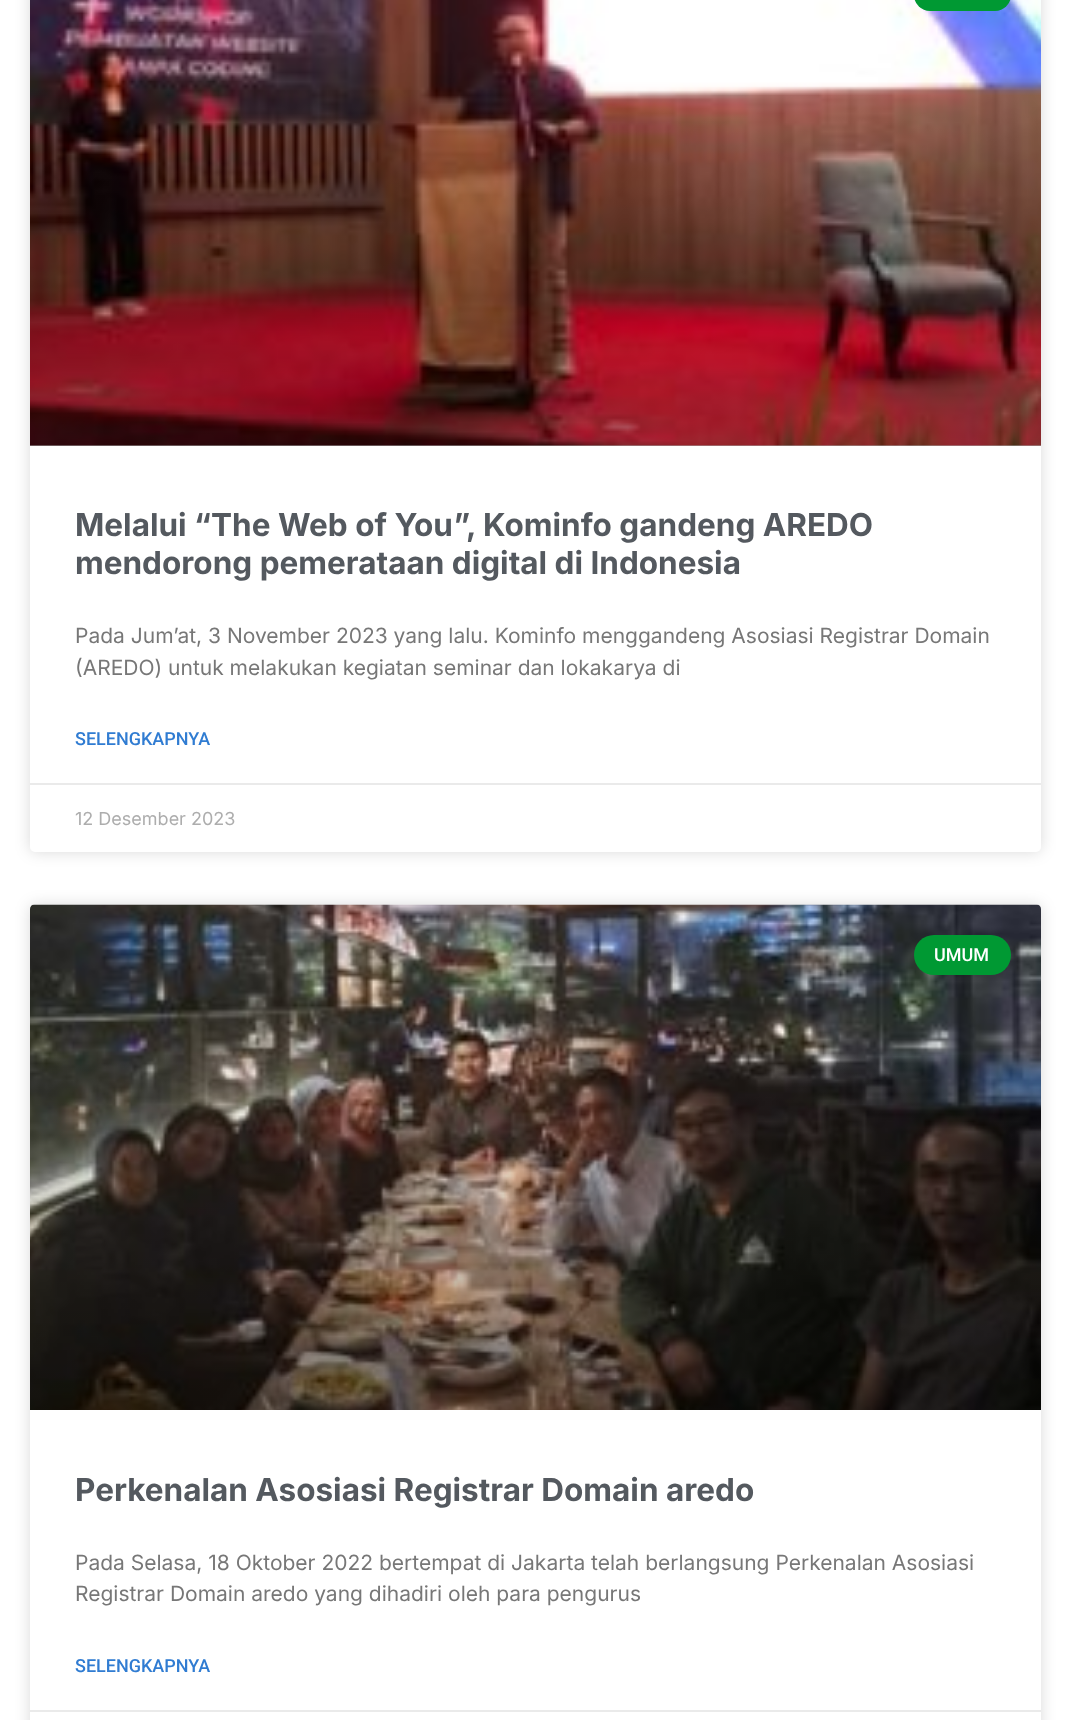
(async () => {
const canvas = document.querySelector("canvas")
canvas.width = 1071
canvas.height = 1720
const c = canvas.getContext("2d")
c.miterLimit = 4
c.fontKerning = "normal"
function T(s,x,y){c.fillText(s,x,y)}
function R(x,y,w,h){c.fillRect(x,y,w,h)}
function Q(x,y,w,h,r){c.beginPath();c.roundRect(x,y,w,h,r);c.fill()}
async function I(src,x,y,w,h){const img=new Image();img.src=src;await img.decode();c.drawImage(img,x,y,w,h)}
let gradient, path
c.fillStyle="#fff"
R(0,0,1071,1720)
c.fillStyle="#00000026"
c.filter="blur(7.5px)"
c.beginPath()
c.roundRect(30,-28,1011,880,5)
c.fill()
c.filter="none"
c.fillStyle="#fff"
Q(30,-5,1011,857,5)
await I("1.png",30,0,1011,446)
c.fillStyle="#093"
Q(914,-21,97,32,20.5)
gradient = c.createLinearGradient(536,446,536,-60)
gradient.addColorStop(0,"#00000059")
gradient.addColorStop(.75,"#00000000")
c.fillStyle = gradient
R(30,90,1011,356)
c.font="bold 31.5px Inter"
c.fillStyle="#54595f"
T("Melalui “The Web of You”, Kominfo gandeng AREDO",75,536)
T("mendorong pemerataan digital di Indonesia",75,574)
c.font="21px Inter"
c.fillStyle="#777"
T("Pada Jum’at, 3 November 2023 yang lalu. Kominfo menggandeng Asosiasi Registrar Domain",75,643)
T("(AREDO) untuk melakukan kegiatan seminar dan lokakarya di",75,675)
c.font="500 18px Roboto"
c.fillStyle="#307cd2"
T("SELENGKAPNYA",75,745)
c.fillStyle="#eaeaea"
R(30,783,1011,2)
c.font="18px Inter"
c.fillStyle="#adadad"
T("12 Desember 2023",75,825)
c.save()
path = new Path2D("M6 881h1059v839h-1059zm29 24h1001c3 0 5 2 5 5v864c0 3-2 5-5 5h-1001c-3 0-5-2-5-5v-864c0-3 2-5 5-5z")
c.clip(path,"evenodd")
c.fillStyle="#00000026"
c.filter="blur(7.5px)"
c.beginPath()
c.roundRect(30,905,1011,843,5)
c.fill()
c.filter="none"
c.restore()
await I("2.png",30,904,1011,506)
gradient = c.createLinearGradient(536,1410,536,905)
gradient.addColorStop(0,"#00000059")
gradient.addColorStop(.75,"#00000000")
c.fillStyle = gradient
R(30,1055,1011,355)
c.fillStyle="#093"
Q(914,935,97,40,20)
c.font="500 18px Roboto"
c.fillStyle="#fff"
T("UMUM",934,961)
c.font="bold 31.5px Inter"
c.fillStyle="#54595f"
T("Perkenalan Asosiasi Registrar Domain aredo",75,1501)
c.font="21px Inter"
c.fillStyle="#777"
T("Pada Selasa, 18 Oktober 2022 bertempat di Jakarta telah berlangsung Perkenalan Asosiasi",75,1570)
T("Registrar Domain aredo yang dihadiri oleh para pengurus",75,1601)
c.font="500 18px Roboto"
c.fillStyle="#307cd2"
T("SELENGKAPNYA",75,1672)
c.fillStyle="#eaeaea"
R(30,1710,1011,2)
})()
